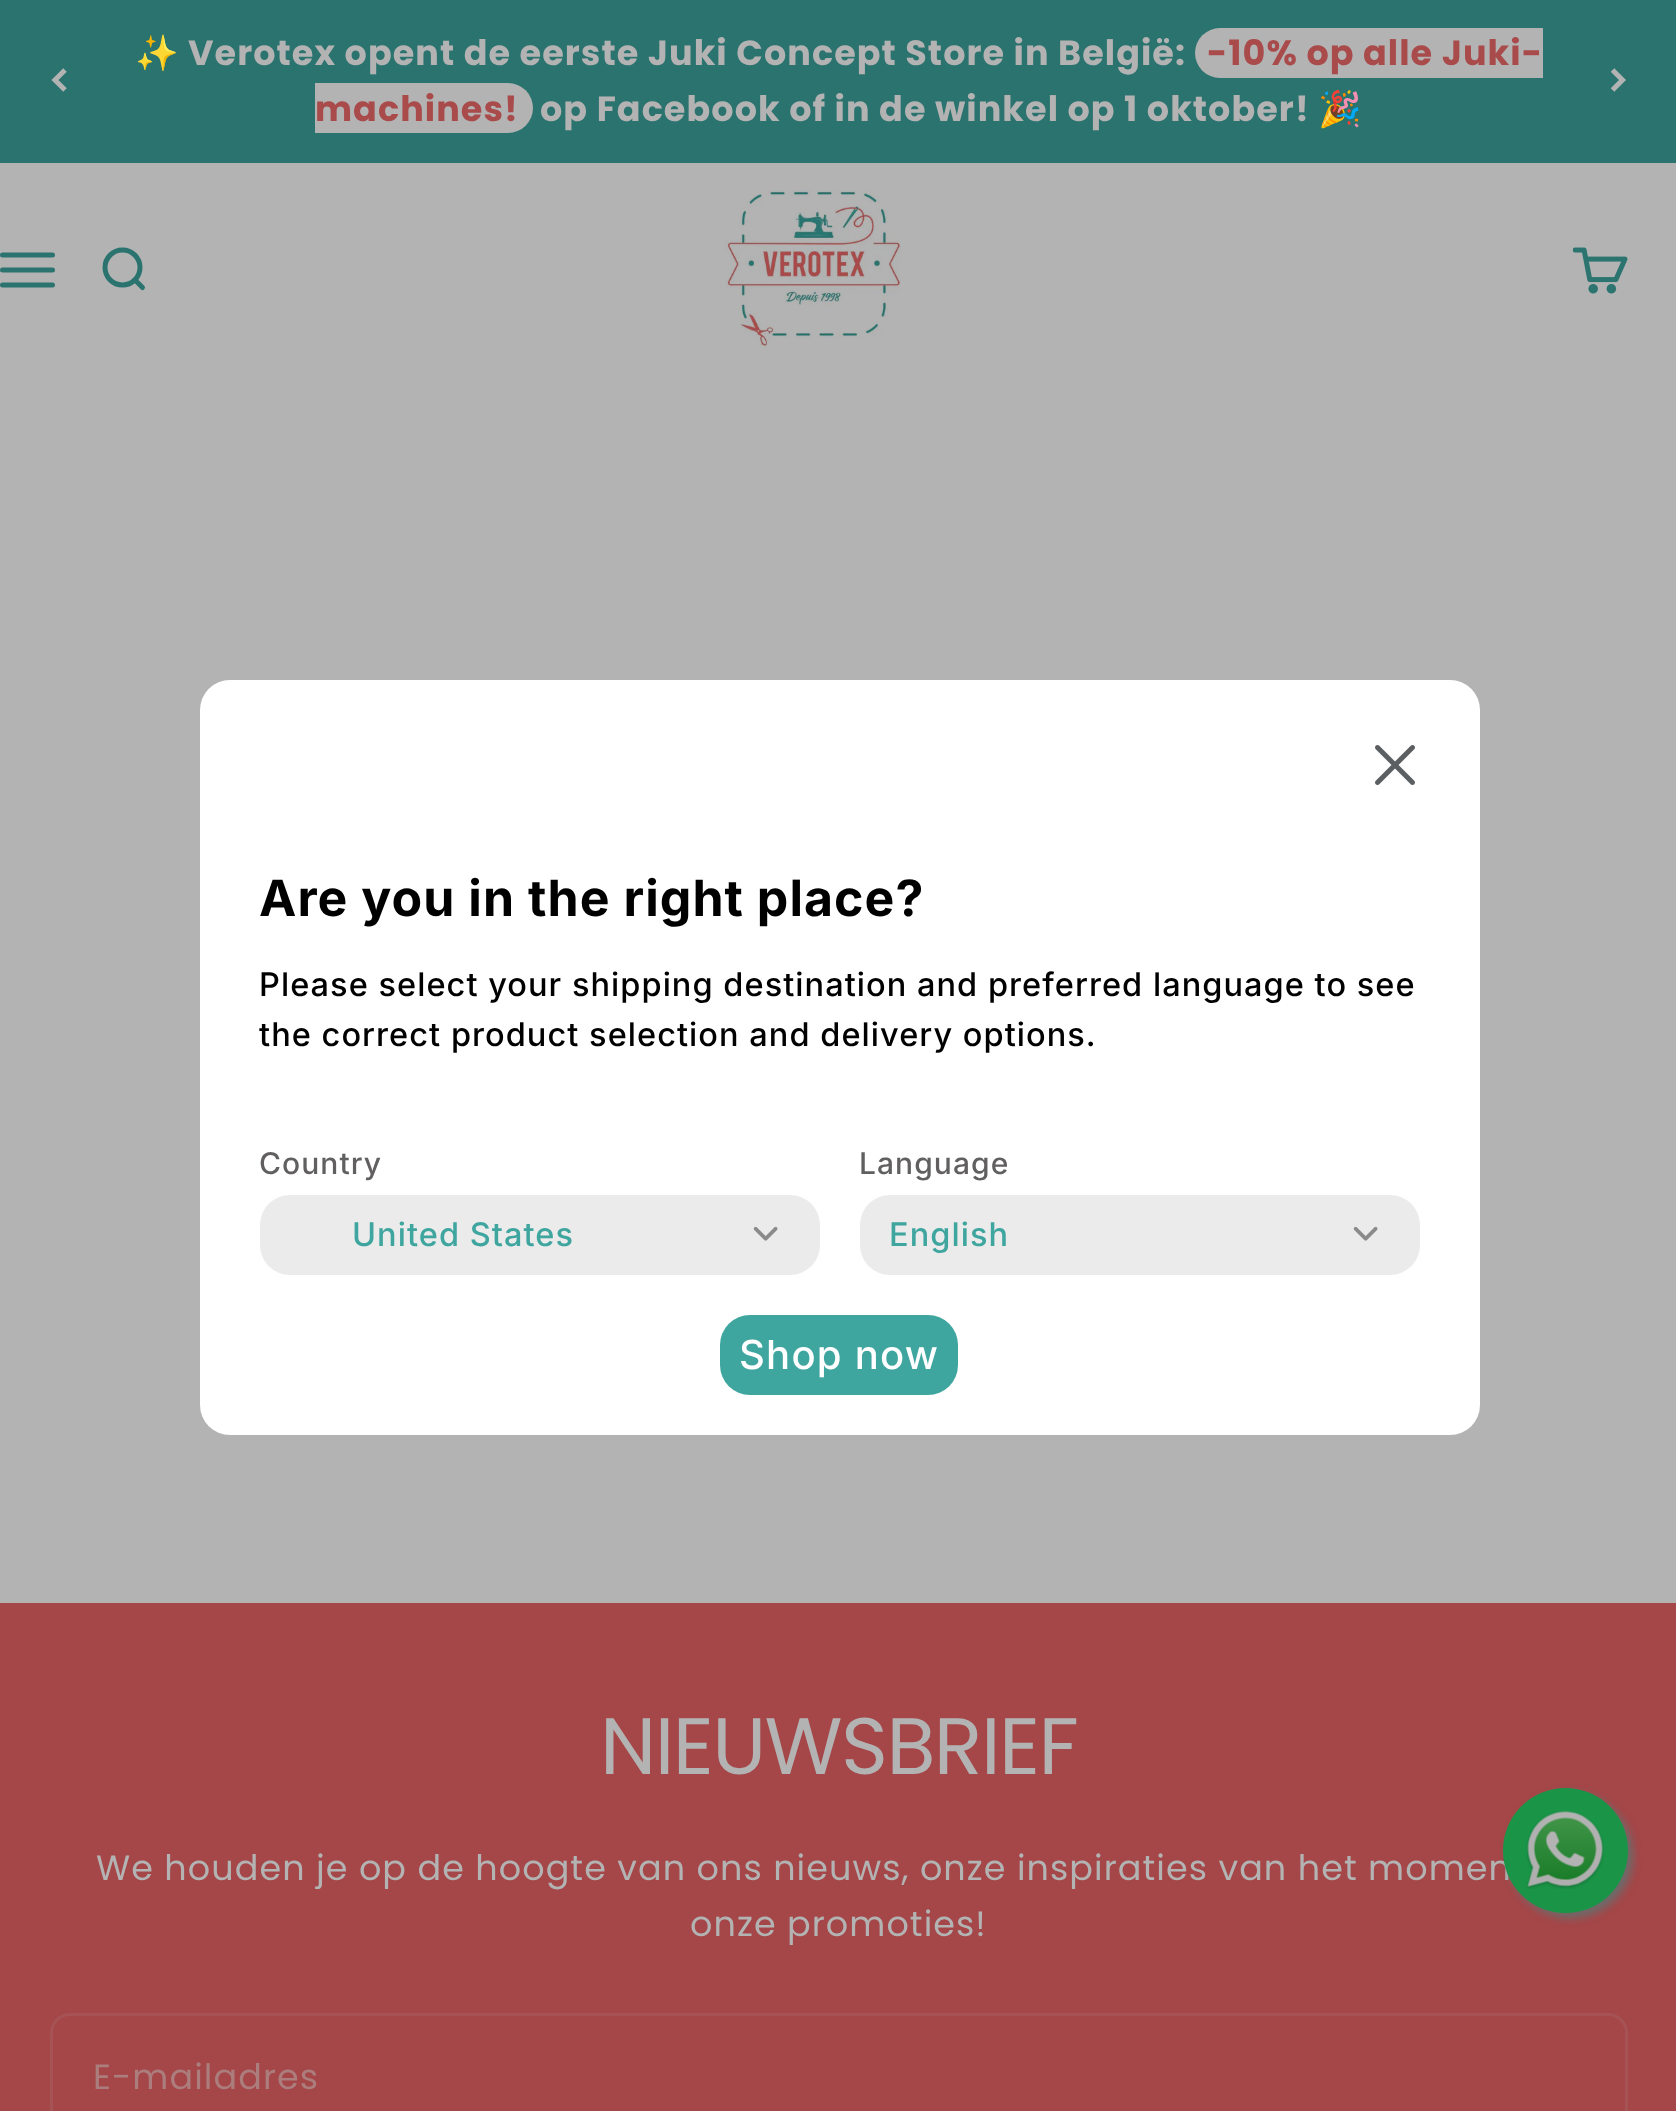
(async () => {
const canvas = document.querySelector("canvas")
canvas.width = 1676
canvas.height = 2111
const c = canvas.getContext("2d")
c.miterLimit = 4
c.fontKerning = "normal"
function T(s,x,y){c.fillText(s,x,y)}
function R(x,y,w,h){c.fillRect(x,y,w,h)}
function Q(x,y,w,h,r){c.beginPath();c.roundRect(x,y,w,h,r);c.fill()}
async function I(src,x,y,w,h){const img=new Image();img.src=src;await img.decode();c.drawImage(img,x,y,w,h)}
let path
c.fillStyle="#b3b3b3"
R(0,0,1676,2111)
c.fillStyle="#2b736f"
R(0,0,1676,163)
path = new Path2D("M65 70l-10 10l10 10")
c.strokeStyle="#b3b3b3"
c.lineWidth=5
c.stroke(path)
c.letterSpacing="1.05px"
c.font="bold 35px Noto Color Emoji"
c.fillStyle="#b3b3b3"
T("✨",135,65)
c.font="bold 35px Poppins"
T("Verotex opent de eerste Juki Concept Store in België:",188,65)
c.beginPath()
c.roundRect(1195,28,348,50,[25,0,0,25])
c.fill()
c.fillStyle="#a94a4b"
T("-10% op alle Juki-",1207,65)
c.fillStyle="#b3b3b3"
c.beginPath()
c.roundRect(315,83,218,50,[0,25,25,0])
c.fill()
c.fillStyle="#a94a4b"
T("machines!",315,121)
c.fillStyle="#b3b3b3"
T("op Facebook of in de winkel op 1 oktober!",540,121)
c.font="bold 35px Noto Color Emoji"
T("🎉",1318,121)
path = new Path2D("M1612.5 90l10-10l-10-10")
c.stroke(path)
path = new Path2D("M2.5 255h50m-50 15h50m-50 15h50")
c.strokeStyle="#2b736f"
c.lineCap="round"
c.stroke(path)
c.beginPath()
c.arc(122.5,267.5,17.5,0,7)
c.stroke()
path = new Path2D("M135 280l7.5 7.5")
c.lineJoin="round"
c.stroke(path)
await I("1.png",724,190,177,158)
await I("2.png",1573,247,55,47)
c.fillStyle="#fff"
Q(200,680,1280,755,30)
await I("3.png",1375,745,40,40)
c.font="bold 50px Inter"
c.fillStyle="#000"
T("Are you in the right place?",259,916)
c.font="500 32.5px Inter"
T("Please select your shipping destination and preferred language to see",259,996)
T("the correct product selection and delivery options.",259,1046)
c.font="500 30px Inter"
c.fillStyle="#615f5f"
T("Country",259,1174)
c.fillStyle="#ebebeb"
Q(260,1195,560,80,30)
c.font="500 32.5px Inter"
c.fillStyle="#3ea59f"
T("United States",352,1246)
await I("4.png",753,1226,25,15)
c.font="500 30px Inter"
c.fillStyle="#615f5f"
T("Language",859,1174)
c.fillStyle="#ebebeb"
Q(860,1195,560,80,30)
c.font="500 32.5px Inter"
c.fillStyle="#3ea59f"
T("English",889,1246)
await I("4.png",1353,1226,25,15)
Q(720,1315,238,80,30)
c.letterSpacing="1.25px"
c.font="500 40px Inter"
c.fillStyle="#fff"
T("Shop now",739,1369)
c.fillStyle="#a54648"
R(0,1603,1676,508)
c.letterSpacing="-1.6px"
c.font="80px Poppins"
c.fillStyle="#b3b3b3"
T("NIEUWSBRIEF",600,1774)
c.letterSpacing="1.05px"
c.font="35px Poppins"
T("We houden je op de hoogte van ons nieuws, onze inspiraties van het momen",96,1880)
T("onze promoties!",690,1936)
c.beginPath()
c.roundRect(51.5,2014.5,1575,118,18.5)
c.strokeStyle="#a65355"
c.lineWidth=3
c.lineJoin="miter"
c.stroke()
c.fillStyle="#ac7d7d"
T("E-mailadres",93,2089)
c.fillStyle="#6b6b6b"
c.filter="blur(4px)"
c.beginPath()
c.roundRect(1508,1793,125,125,62.5)
c.fill()
c.filter="none"
c.fillStyle="#1a9447"
c.beginPath()
c.arc(1565.5,1850.5,62.5,0,7)
c.fill()
await I("5.png",1526,1811,78,78)
})()
